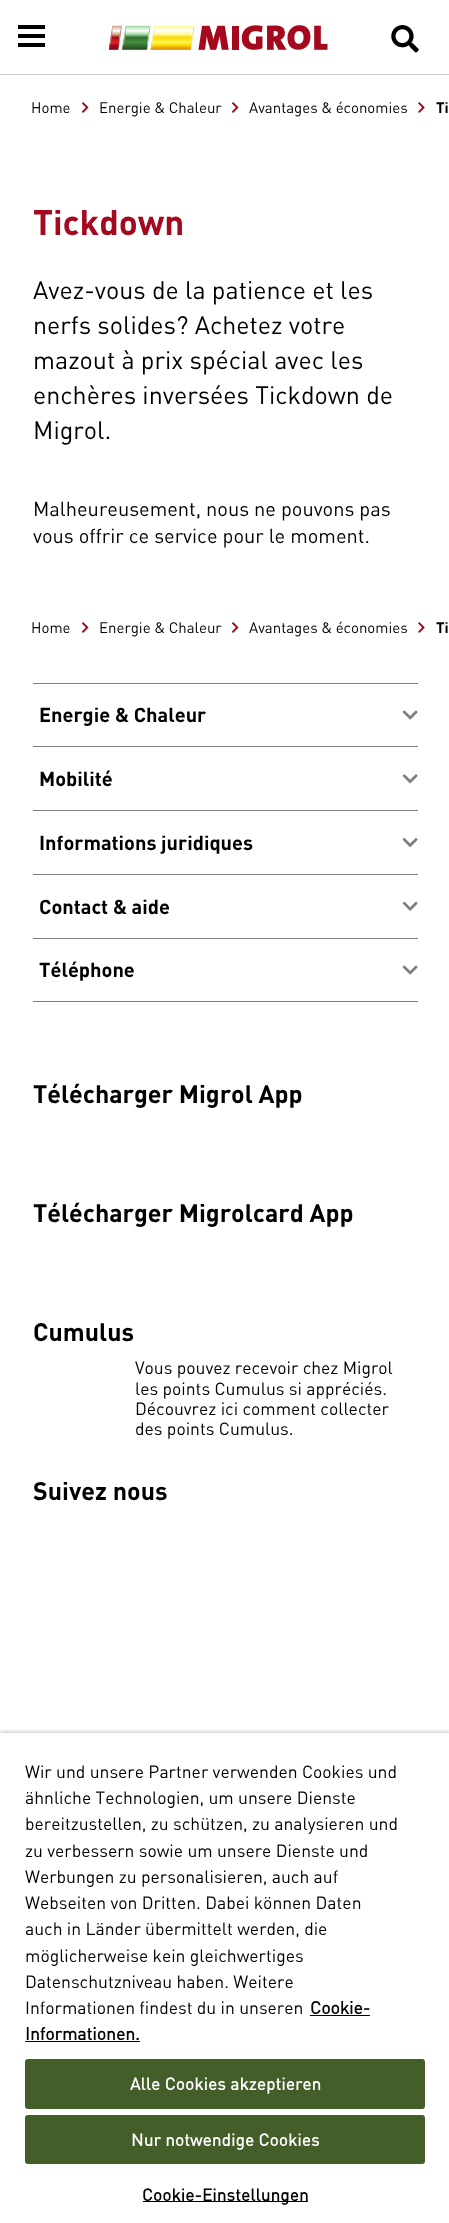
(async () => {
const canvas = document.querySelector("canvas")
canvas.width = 449
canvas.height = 2223
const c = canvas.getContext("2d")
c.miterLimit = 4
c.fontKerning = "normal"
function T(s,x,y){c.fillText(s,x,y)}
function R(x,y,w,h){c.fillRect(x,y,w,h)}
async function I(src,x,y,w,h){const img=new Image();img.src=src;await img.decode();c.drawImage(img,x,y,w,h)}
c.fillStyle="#fff"
R(0,0,449,2223)
c.fillStyle="#cdcdcd"
R(0,74,449,1)
c.fillStyle="#000"
R(18,34,27,4)
R(18,25,27,4)
R(18,43,27,4)
await I("1.png",109,25,219,25)
await I("2.png",391,25,28,28)
c.font="15px DIN"
T("Home",31,113)
await I("3.png",82,102,7,11)
T("Energie & Chaleur",99,113)
await I("3.png",232,102,7,11)
T("Avantages & économies",249,113)
await I("4.png",418,102,7,11)
c.font="bold 15px DIN"
T("Ti",436,113)
c.font="bold 35px DIN"
c.fillStyle="#a4091e"
T("Tickdown",33,235)
c.font="25px DIN"
c.fillStyle="#000"
T("Avez-vous de la patience et les",33,299)
T("nerfs solides? Achetez votre",33,334)
T("mazout à prix spécial avec les",33,369)
T("enchères inversées Tickdown de",33,404)
T("Migrol.",33,439)
c.font="20px DIN"
T("Malheureusement, nous ne pouvons pas",33,516)
T("vous offrir ce service pour le moment.",33,543)
c.font="15px DIN"
T("Home",31,633)
await I("3.png",82,622,7,11)
T("Energie & Chaleur",99,633)
await I("3.png",232,622,7,11)
T("Avantages & économies",249,633)
await I("4.png",418,622,7,11)
c.font="bold 15px DIN"
T("Ti",436,633)
c.fillStyle="#7f7f7f"
R(33,683,385,1)
c.font="bold 20px DIN"
c.fillStyle="#000"
T("Energie & Chaleur",39,722)
await I("5.png",402,710,16,10)
c.fillStyle="#7f7f7f"
R(33,746,385,1)
c.fillStyle="#000"
T("Mobilité",39,786)
await I("6.png",402,774,16,10)
c.fillStyle="#7f7f7f"
R(33,810,385,1)
c.fillStyle="#000"
T("Informations juridiques",39,850)
await I("7.png",402,838,16,9)
c.fillStyle="#7f7f7f"
R(33,874,385,1)
c.fillStyle="#000"
T("Contact & aide",39,914)
await I("8.png",402,901,16,10)
c.fillStyle="#7f7f7f"
R(33,938,385,1)
c.fillStyle="#000"
T("Téléphone",39,977)
await I("5.png",402,965,16,10)
c.fillStyle="#7f7f7f"
R(33,1001,385,1)
c.font="bold 25px DIN"
c.fillStyle="#000"
T("Télécharger Migrol App",33,1103)
T("Télécharger Migrolcard App",33,1222)
T("Cumulus",33,1341)
c.font="17.5px DIN"
T("Vous pouvez recevoir chez Migrol",135,1374)
T("les points Cumulus si appréciés.",135,1395)
T("Découvrez ici comment collecter",135,1415)
T("des points Cumulus.",135,1435)
c.font="bold 25px DIN"
T("Suivez nous",33,1500)
c.save()
c.beginPath()
c.rect(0,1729,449,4)
c.clip()
c.fillStyle="#00000059"
c.filter="blur(2.5px)"
c.beginPath()
c.rect(0,1733,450,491)
c.fill()
c.filter="none"
c.restore()
c.font="17.5px DIN"
T("Wir und unsere Partner verwenden Cookies und",25,1778)
T("ähnliche Technologien, um unsere Dienste",25,1804)
T("bereitzustellen, zu schützen, zu analysieren und",25,1830)
T("zu verbessern sowie um unsere Dienste und",25,1857)
T("Werbungen zu personalisieren, auch auf",25,1883)
T("Webseiten von Dritten. Dabei können Daten",25,1909)
T("auch in Länder übermittelt werden, die",25,1935)
T("möglicherweise kein gleichwertiges",25,1962)
T("Datenschutzniveau haben. Weitere",25,1988)
T("Informationen findest du in unseren",25,2014)
c.font="bold 17.5px 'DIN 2'"
T("Cookie-",310,2014)
R(310,2015,60,1)
T("Informationen.",25,2040)
R(25,2041,115,1)
c.fillStyle="#445e2a"
c.beginPath()
c.roundRect(25.5,2059.5,399,49,2)
c.fill()
c.strokeStyle="#445e2a"
c.stroke()
c.letterSpacing="0.2px"
c.font="bold 17px 'DIN 2'"
c.fillStyle="#fff"
T("Alle Cookies akzeptieren",130,2090)
c.fillStyle="#445e2a"
c.beginPath()
c.roundRect(25.5,2115.5,399,48,2)
c.fill()
c.stroke()
c.fillStyle="#fff"
T("Nur notwendige Cookies",131,2146)
c.fillStyle="#000"
R(143,2201,165,1)
T("Cookie-Einstellungen",142,2201)
})()
